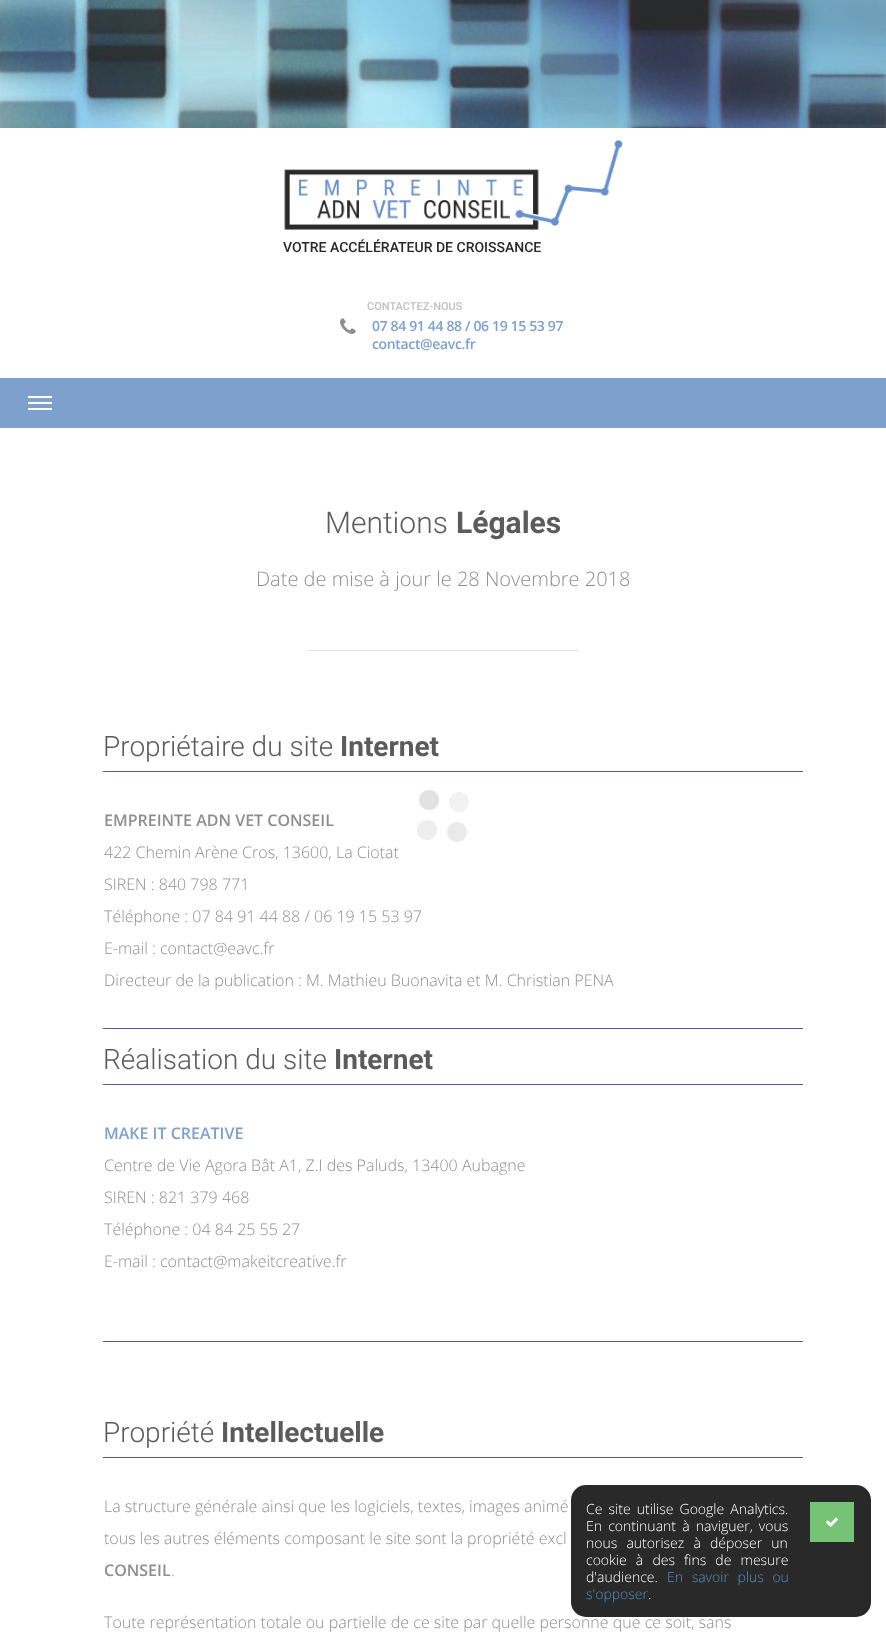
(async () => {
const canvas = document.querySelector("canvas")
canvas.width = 886
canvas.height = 1632
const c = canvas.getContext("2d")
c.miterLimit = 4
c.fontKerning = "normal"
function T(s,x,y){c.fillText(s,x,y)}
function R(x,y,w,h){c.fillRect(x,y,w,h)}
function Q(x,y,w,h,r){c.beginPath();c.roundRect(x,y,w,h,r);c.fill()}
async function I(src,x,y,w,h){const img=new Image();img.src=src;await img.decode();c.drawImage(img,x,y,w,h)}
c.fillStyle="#fff"
R(0,0,886,1632)
await I("1.png",0,0,886,128)
await I("2.png",284,140,339,90)
c.font="500 14px Roboto"
c.fillStyle="#292929"
T("VOTRE ACCÉLÉRATEUR DE CROISSANCE",283,252)
await I("3.png",340,318,16,16)
c.font="500 11px Roboto"
c.fillStyle="#c0c0c0"
T("CONTACTEZ-NOUS",367,310)
c.letterSpacing="-0.35px"
c.font="600 14px Open Sans"
c.fillStyle="#7ea0cc"
T("07 84 91 44 88 / 06 19 15 53 97",372,331)
T("contact@eavc.fr",372,349)
R(0,378,886,50)
c.fillStyle="#fff"
R(28,402,24,2)
R(28,396,24,2)
R(28,408,24,2)
c.letterSpacing="0px"
c.font="300 30px Roboto"
c.fillStyle="#5b5b5b"
T("Mentions",325,533)
c.font="bold 30px Roboto"
T("Légales",456,533)
c.font="300 20px Open Sans"
c.fillStyle="#8e8e8e"
T("Date de mise à jour le 28 Novembre 2018",256,586)
c.fillStyle="#e2e2e2"
R(308,650,270,1)
c.font="300 28px Roboto"
c.fillStyle="#5b5b5b"
T("Propriétaire du site",103,756)
c.font="bold 28px Roboto"
T("Internet",340,756)
c.save()
c.beginPath()
c.rect(103,716,700,313)
c.clip()
c.strokeStyle="#565a85"
c.strokeRect(88.5,771.5,729,257)
c.restore()
c.font="600 16px Open Sans"
c.fillStyle="#8e8e8e"
T("EMPREINTE ADN VET CONSEIL",104,826)
c.font="300 16px Open Sans"
T("422 Chemin Arène Cros, 13600, La Ciotat",104,858)
T("SIREN : 840 798 771",104,890)
T("Téléphone : 07 84 91 44 88 / 06 19 15 53 97",104,922)
T("E-mail : contact@eavc.fr",104,954)
T("Directeur de la publication : M. Mathieu Buonavita et M. Christian PENA",104,986)
c.font="300 28px Roboto"
c.fillStyle="#5b5b5b"
T("Réalisation du site",103,1069)
c.font="bold 28px Roboto"
T("Internet",334,1069)
c.save()
c.beginPath()
c.rect(103,1029,700,313)
c.clip()
c.strokeStyle="#565a85"
c.strokeRect(88.5,1084.5,729,257)
c.restore()
c.font="600 16px Open Sans"
c.fillStyle="#7ea0cc"
T("MAKE IT CREATIVE",104,1139)
c.font="300 16px Open Sans"
c.fillStyle="#8e8e8e"
T("Centre de Vie Agora Bât A1, Z.I des Paluds, 13400 Aubagne",104,1171)
T("SIREN : 821 379 468",104,1203)
T("Téléphone : 04 84 25 55 27",104,1235)
T("E-mail : contact@makeitcreative.fr",104,1267)
c.font="300 28px Roboto"
c.fillStyle="#5b5b5b"
T("Propriété",103,1442)
c.font="bold 28px Roboto"
T("Intellectuelle",221,1442)
c.save()
c.beginPath()
c.rect(103,1402,700,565)
c.clip()
c.strokeStyle="#565a85"
c.strokeRect(88.5,1457.5,729,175)
c.restore()
c.font="300 16px Open Sans"
c.fillStyle="#8e8e8e"
T("La structure générale ainsi que les logiciels, textes, images animé",104,1512)
T("tous les autres éléments composant le site sont la propriété excl",104,1544)
c.font="600 16px Open Sans"
T("CONSEIL",104,1576)
c.font="300 16px Open Sans"
T(".",171,1576)
T("Toute représentation totale ou partielle de ce site par quelle personne que ce soit, sans",104,1628)
await I("4.png",417,790,52,52)
c.fillStyle="#292929"
Q(571,1485,300,132,15)
c.wordSpacing="2.5px"
c.font="300 14px Open Sans"
c.fillStyle="#fff"
T("Ce site utilise Google Analytics.",586,1514)
c.fillStyle="#76c376"
R(810,1502,44,40)
await I("5.png",826,1517,12,10)
c.fillStyle="#fff"
T("En continuant à naviguer, vous",586,1531)
c.wordSpacing="5.5px"
T("nous autorisez à déposer un",586,1548)
T("cookie à des fins de mesure",586,1565)
c.wordSpacing="0px"
T("d'audience.",586,1582)
c.wordSpacing="5px"
c.fillStyle="#548fc3"
T("En savoir plus ou",667,1582)
c.wordSpacing="0px"
T("s'opposer",586,1599)
c.fillStyle="#fff"
T(".",648,1599)
})()
